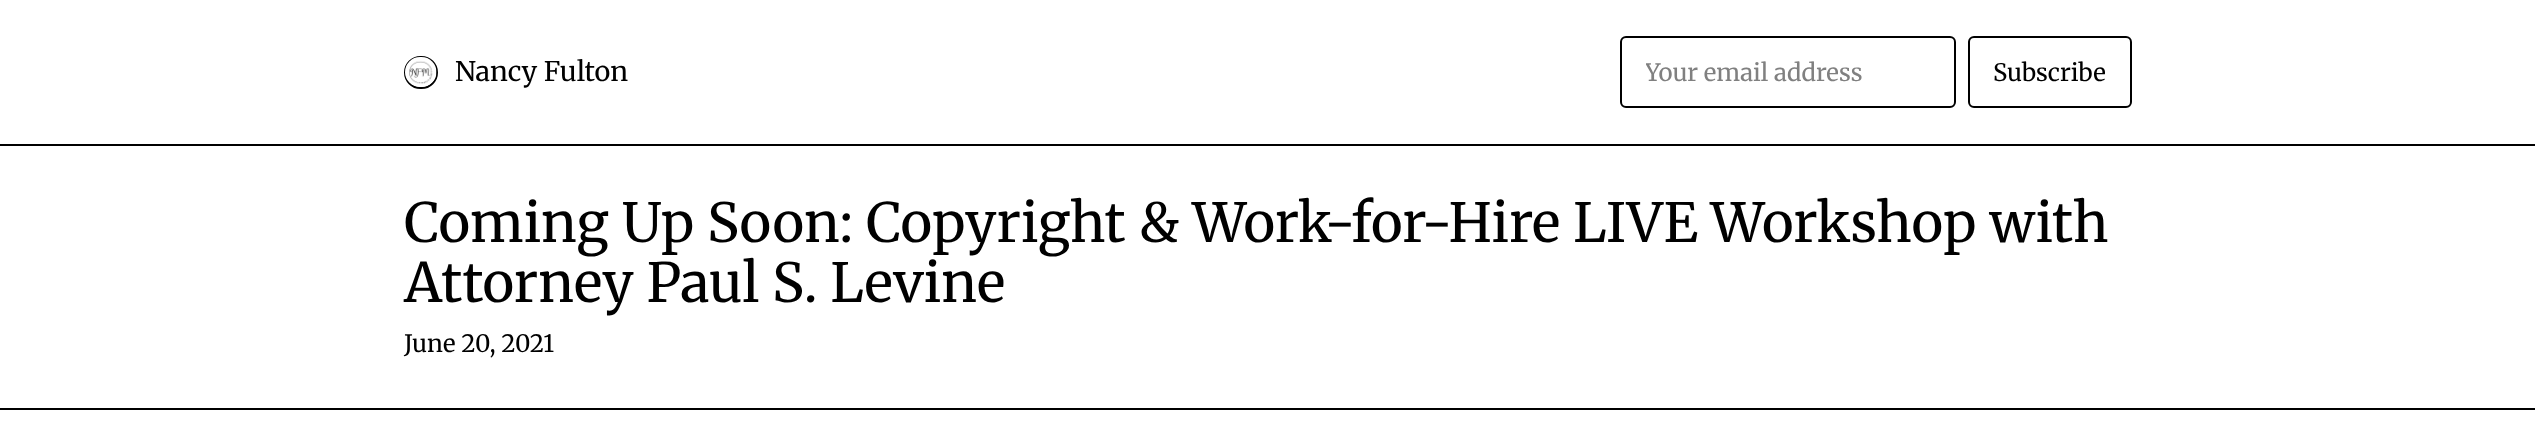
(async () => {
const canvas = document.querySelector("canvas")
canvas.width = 2535
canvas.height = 443
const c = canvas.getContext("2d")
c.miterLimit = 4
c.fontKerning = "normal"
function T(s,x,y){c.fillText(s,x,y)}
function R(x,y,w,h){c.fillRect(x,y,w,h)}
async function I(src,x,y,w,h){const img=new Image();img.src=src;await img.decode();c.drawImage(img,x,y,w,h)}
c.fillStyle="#fff"
R(0,0,2535,443)
c.fillStyle="#000"
R(0,144,2535,2)
c.beginPath()
c.roundRect(405,57,32,31,15.5)
c.strokeStyle="#000"
c.lineWidth=2
c.stroke()
await I("1.png",405,57,32,30)
c.font="27px Merriweather"
T("Nancy Fulton",455,81)
c.beginPath()
c.roundRect(1621,37,334,70,5)
c.stroke()
c.save()
c.beginPath()
c.rect(1646,57,285,30)
c.clip()
c.font="24px Merriweather"
c.fillStyle="#808080"
T("Your email address",1645,81)
c.restore()
c.beginPath()
c.roundRect(1969,37,162,70,5)
c.stroke()
c.font="24px Merriweather"
T("Subscribe",1993,81)
R(0,408,2535,2)
c.font="54px Merriweather"
T("Coming Up Soon: Copyright & Work-for-Hire LIVE Workshop with",404,242)
T("Attorney Paul S. Levine",404,302)
c.font="24px Merriweather"
T("June 20, 2021",404,352)
})()
